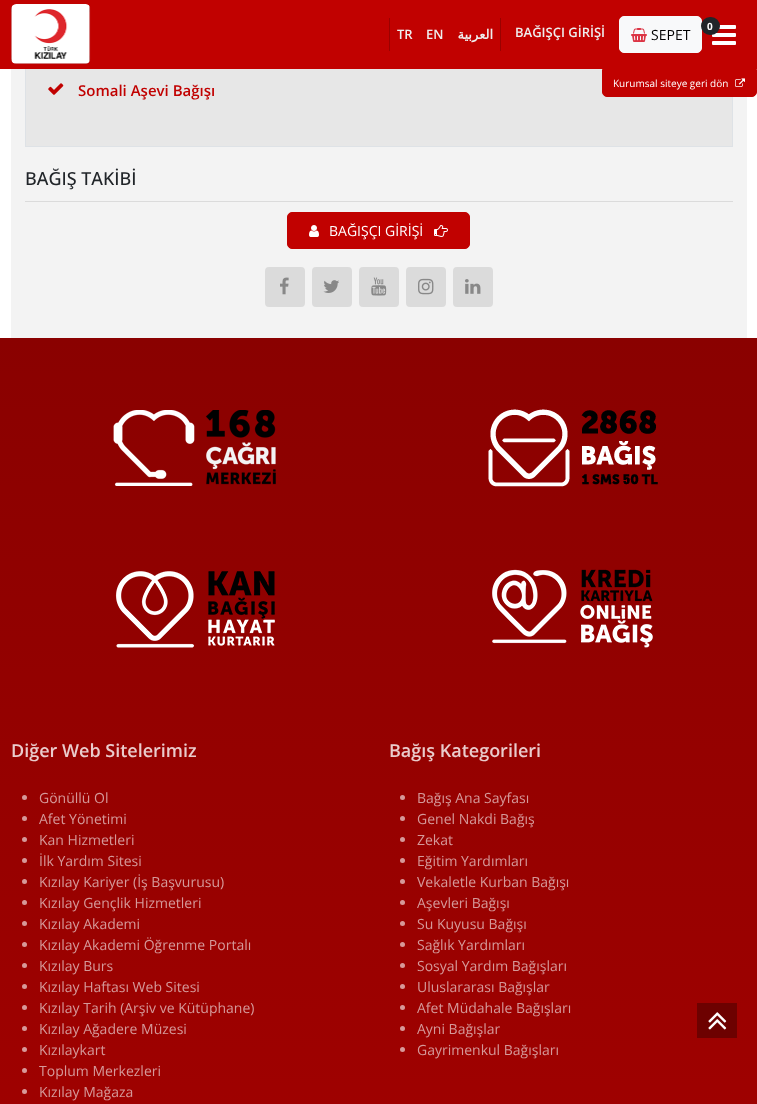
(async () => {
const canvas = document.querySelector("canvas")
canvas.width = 757
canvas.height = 1104
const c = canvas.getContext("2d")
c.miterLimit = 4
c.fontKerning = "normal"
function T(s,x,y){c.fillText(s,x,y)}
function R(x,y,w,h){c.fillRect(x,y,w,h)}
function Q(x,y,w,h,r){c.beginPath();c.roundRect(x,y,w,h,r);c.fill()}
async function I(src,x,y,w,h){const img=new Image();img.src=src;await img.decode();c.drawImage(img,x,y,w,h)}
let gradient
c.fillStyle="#fff"
R(0,0,757,1104)
c.fillStyle="#f3f3f3"
R(11,69,736,269)
c.fillStyle="#e7e7e7"
R(26,69,706,77)
c.strokeStyle="#dee2e6"
c.strokeRect(25.5,-.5,707,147)
c.fillStyle="#c10100"
R(0,0,757,69)
await I("1.png",11,4,80,60)
c.fillStyle="#9a0100"
R(500,18,1,33)
R(389,18,1,33)
c.font="600 13px Open Sans"
c.fillStyle="#eee"
T("TR",397,39)
T("EN",426,39)
c.direction="rtl"
c.font="bold 13px DejaVu Sans"
T("العربية",493,39)
c.direction="ltr"
c.font="600 13px Open Sans"
T("BAĞIŞÇI GİRİŞİ",515,37)
c.fillStyle="#f8f9fa"
c.beginPath()
c.roundRect(619.5,16.5,82,36,4.5)
c.fill()
c.strokeStyle="#f8f9fa"
c.stroke()
await I("3.png",712,25,24,20)
c.fillStyle="#212529"
Q(701,17,19,18,9)
c.font="bold 10px Open Sans"
c.fillStyle="#fff"
T("0",707,30)
await I("2.png",631,28,16,14)
c.font="14px Open Sans"
c.fillStyle="#000"
T("SEPET",651,40)
c.fillStyle="#c10100"
c.beginPath()
c.roundRect(602.5,69.5,154,27,[0,0,4.5,4.5])
c.fill()
c.strokeStyle="#c10100"
c.stroke()
c.font="10px Open Sans"
c.fillStyle="#fff"
T("Kurumsal siteye geri dön",613,87)
await I("4.png",735,78,10,9)
gradient = c.createLinearGradient(378,338,379,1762)
gradient.addColorStop(0,"#8a0100")
gradient.addColorStop(1,"#b00100")
c.fillStyle = gradient
R(0,338,757,766)
c.fillStyle="#6d0100"
R(697,1003,40,35)
await I("5.png",708,1012,19,18)
await I("6.png",48,83,16,12)
c.font="600 15px Open Sans"
c.fillStyle="#c10100"
T("Somali Aşevi Bağışı",78,96)
c.fillStyle="#dbdbdb"
R(25,201,708,1)
c.font="500 18px Open Sans"
c.fillStyle="#212529"
T("BAĞIŞ TAKİBİ",25,185)
c.fillStyle="#c10100"
c.beginPath()
c.roundRect(287.5,212.5,182,36,4.5)
c.fill()
c.stroke()
await I("7.png",309,225,10,12)
c.font="14px Open Sans"
c.fillStyle="#fff"
T("BAĞIŞÇI GİRİŞİ",329,236)
await I("8.png",434,225,14,12)
c.fillStyle="#dbdbdb"
Q(265,267,40,40,4)
await I("9.png",280,277,9,18)
Q(312,267,40,40,4)
await I("10.png",323,280,16,13)
Q(359,267,40,40,4)
await I("11.png",371,277,16,19)
Q(406,267,40,40,4)
await I("12.png",418,278,16,17)
Q(453,267,40,40,4)
await I("13.png",465,279,16,15)
await I("14.png",113,410,163,76)
await I("15.png",488,409,170,78)
await I("16.png",115,571,160,77)
await I("17.png",492,569,161,79)
c.font="600 18px Open Sans"
c.fillStyle="#eacccc"
T("Diğer Web Sitelerimiz",11,757)
c.fillStyle="#d59999"
c.beginPath()
c.arc(24.5,797.5,2.5,0,7)
c.fill()
c.font="14px Open Sans"
T("Gönüllü Ol",39,803)
c.beginPath()
c.arc(24.5,818.5,2.5,0,7)
c.fill()
T("Afet Yönetimi",39,824)
c.beginPath()
c.arc(24.5,839.5,2.5,0,7)
c.fill()
T("Kan Hizmetleri",39,845)
c.fillStyle="#d69999"
c.beginPath()
c.arc(24.5,860.5,2.5,0,7)
c.fill()
c.fillStyle="#d59999"
T("İlk Yardım Sitesi",39,866)
c.fillStyle="#d69999"
c.beginPath()
c.arc(24.5,881.5,2.5,0,7)
c.fill()
c.fillStyle="#d59999"
T("Kızılay Kariyer (İş Başvurusu)",39,887)
c.fillStyle="#d69999"
c.beginPath()
c.arc(24.5,902.5,2.5,0,7)
c.fill()
c.fillStyle="#d59999"
T("Kızılay Gençlik Hizmetleri",39,908)
c.fillStyle="#d79999"
c.beginPath()
c.arc(24.5,923.5,2.5,0,7)
c.fill()
c.fillStyle="#d59999"
T("Kızılay Akademi",39,929)
c.fillStyle="#d79999"
c.beginPath()
c.arc(24.5,944.5,2.5,0,7)
c.fill()
c.fillStyle="#d59999"
T("Kızılay Akademi Öğrenme Portalı",39,950)
c.fillStyle="#d79999"
c.beginPath()
c.arc(24.5,965.5,2.5,0,7)
c.fill()
c.fillStyle="#d59999"
T("Kızılay Burs",39,971)
c.fillStyle="#d79999"
c.beginPath()
c.arc(24.5,986.5,2.5,0,7)
c.fill()
c.fillStyle="#d59999"
T("Kızılay Haftası Web Sitesi",39,992)
c.fillStyle="#d79999"
c.beginPath()
c.arc(24.5,1007.5,2.5,0,7)
c.fill()
c.fillStyle="#d59999"
T("Kızılay Tarih (Arşiv ve Kütüphane)",39,1013)
c.fillStyle="#d79999"
c.beginPath()
c.arc(24.5,1028.5,2.5,0,7)
c.fill()
c.fillStyle="#d59999"
T("Kızılay Ağadere Müzesi",39,1034)
c.fillStyle="#d89999"
c.beginPath()
c.arc(24.5,1049.5,2.5,0,7)
c.fill()
c.fillStyle="#d59999"
T("Kızılaykart",39,1055)
c.fillStyle="#d89999"
c.beginPath()
c.arc(24.5,1070.5,2.5,0,7)
c.fill()
c.fillStyle="#d59999"
T("Toplum Merkezleri",39,1076)
c.fillStyle="#d89999"
c.beginPath()
c.arc(24.5,1091.5,2.5,0,7)
c.fill()
c.fillStyle="#d59999"
T("Kızılay Mağaza",39,1097)
c.font="600 18px Open Sans"
c.fillStyle="#eacccc"
T("Bağış Kategorileri",389,757)
c.fillStyle="#d59999"
c.beginPath()
c.arc(402.5,797.5,2.5,0,7)
c.fill()
c.font="14px Open Sans"
T("Bağış Ana Sayfası",417,803)
c.beginPath()
c.arc(402.5,818.5,2.5,0,7)
c.fill()
T("Genel Nakdi Bağış",417,824)
c.beginPath()
c.arc(402.5,839.5,2.5,0,7)
c.fill()
T("Zekat",417,845)
c.fillStyle="#d69999"
c.beginPath()
c.arc(402.5,860.5,2.5,0,7)
c.fill()
c.fillStyle="#d59999"
T("Eğitim Yardımları",417,866)
c.fillStyle="#d69999"
c.beginPath()
c.arc(402.5,881.5,2.5,0,7)
c.fill()
c.fillStyle="#d59999"
T("Vekaletle Kurban Bağışı",417,887)
c.fillStyle="#d69999"
c.beginPath()
c.arc(402.5,902.5,2.5,0,7)
c.fill()
c.fillStyle="#d59999"
T("Aşevleri Bağışı",417,908)
c.fillStyle="#d79999"
c.beginPath()
c.arc(402.5,923.5,2.5,0,7)
c.fill()
c.fillStyle="#d59999"
T("Su Kuyusu Bağışı",417,929)
c.fillStyle="#d79999"
c.beginPath()
c.arc(402.5,944.5,2.5,0,7)
c.fill()
c.fillStyle="#d59999"
T("Sağlık Yardımları",417,950)
c.fillStyle="#d79999"
c.beginPath()
c.arc(402.5,965.5,2.5,0,7)
c.fill()
c.fillStyle="#d59999"
T("Sosyal Yardım Bağışları",417,971)
c.fillStyle="#d79999"
c.beginPath()
c.arc(402.5,986.5,2.5,0,7)
c.fill()
c.fillStyle="#d59999"
T("Uluslararası Bağışlar",417,992)
c.fillStyle="#d79999"
c.beginPath()
c.arc(402.5,1007.5,2.5,0,7)
c.fill()
c.fillStyle="#d59999"
T("Afet Müdahale Bağışları",417,1013)
c.fillStyle="#d79999"
c.beginPath()
c.arc(402.5,1028.5,2.5,0,7)
c.fill()
c.fillStyle="#d59999"
T("Ayni Bağışlar",417,1034)
c.fillStyle="#d89999"
c.beginPath()
c.arc(402.5,1049.5,2.5,0,7)
c.fill()
c.fillStyle="#d59999"
T("Gayrimenkul Bağışları",417,1055)
})()
